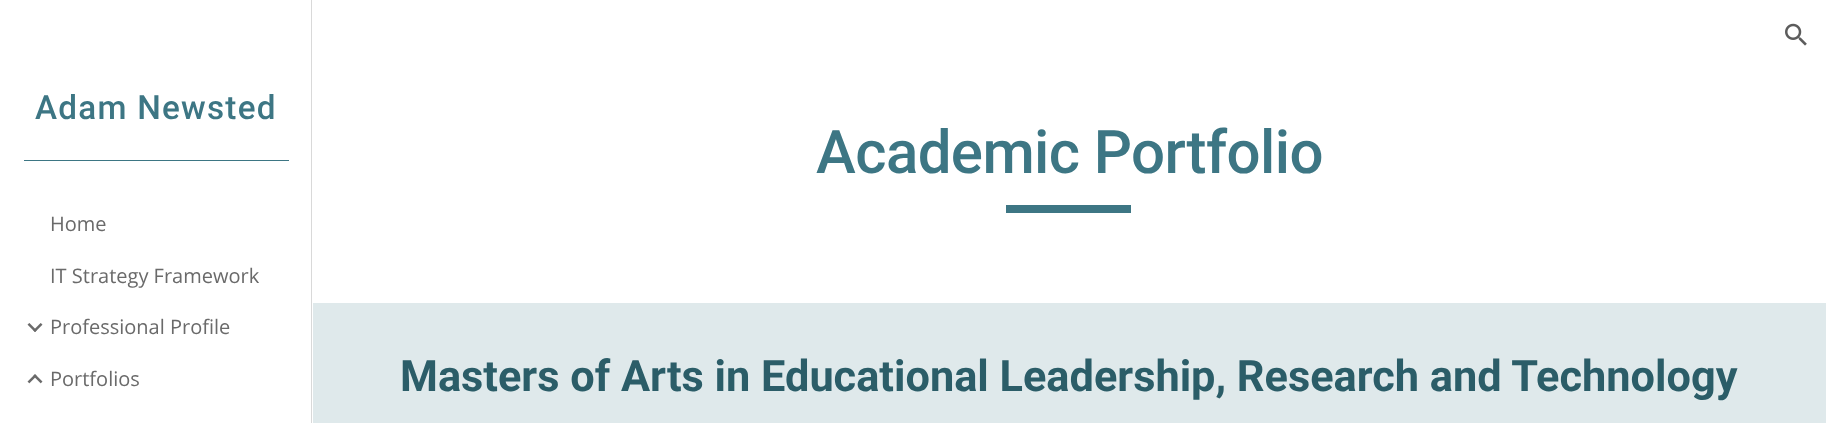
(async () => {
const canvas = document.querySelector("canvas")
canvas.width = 1826
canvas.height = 423
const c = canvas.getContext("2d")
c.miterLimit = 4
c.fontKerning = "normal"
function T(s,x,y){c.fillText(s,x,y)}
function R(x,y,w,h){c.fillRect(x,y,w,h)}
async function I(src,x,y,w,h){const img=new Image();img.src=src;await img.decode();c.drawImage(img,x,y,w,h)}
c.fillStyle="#fff"
R(0,0,1826,423)
await I("1.png",1785,23,22,23)
c.fillStyle="#d9d9d9"
R(311,0,1,423)
c.letterSpacing="1.25px"
c.font="500 33.25px Roboto"
c.fillStyle="#3d7684"
T("Adam Newsted",35,119)
R(24,160,265,1)
c.letterSpacing="0px"
c.font="20px Open Sans"
c.fillStyle="#6a6a6a"
T("Home",50,231)
T("IT Strategy Framework",50,283)
await I("2.png",27,323,16,9)
T("Professional Profile",50,334)
await I("3.png",27,374,16,10)
T("Portfolios",50,386)
c.letterSpacing="-0.6px"
c.font="500 60px Roboto"
c.fillStyle="#3d7684"
T("Academic Portfolio",816,173)
R(1006,205,125,8)
c.fillStyle="#dfe9eb"
R(313,303,1513,120)
c.letterSpacing="0px"
c.font="bold 43.3px Roboto"
c.fillStyle="#2b5d68"
T("Masters of Arts in Educational Leadership, Research and Technology",400,391)
})()
